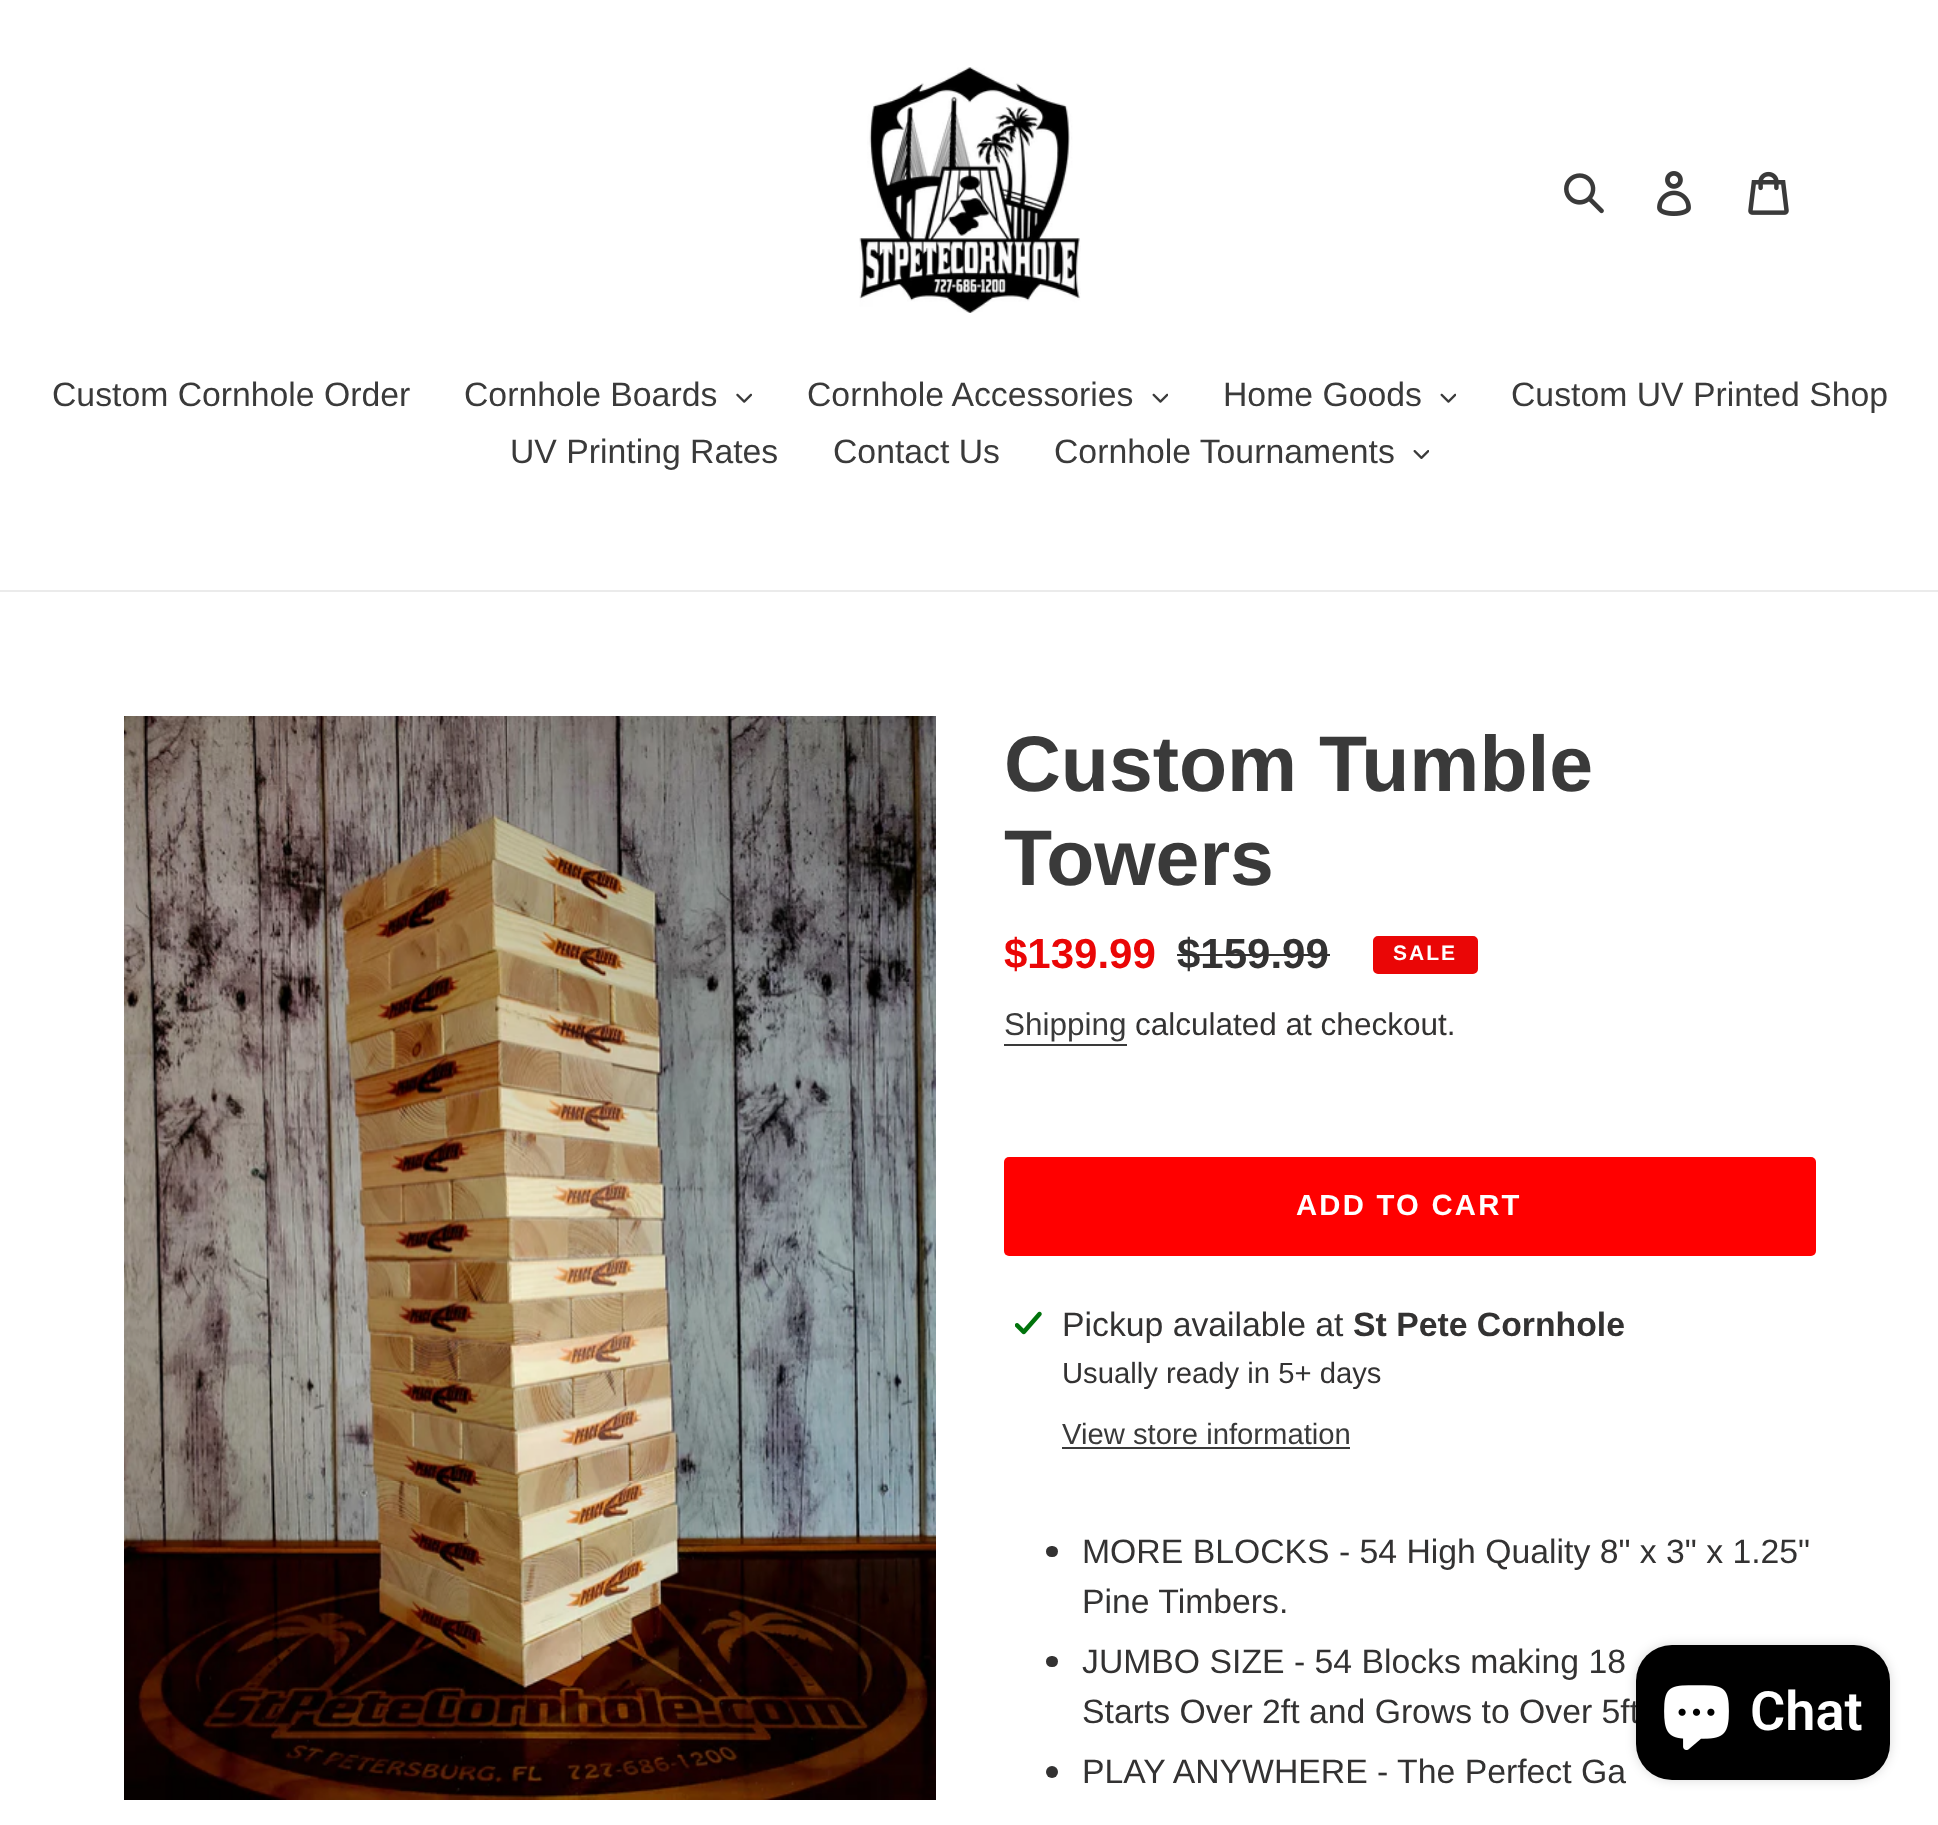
(async () => {
const canvas = document.querySelector("canvas")
canvas.width = 1938
canvas.height = 1825
const c = canvas.getContext("2d")
c.miterLimit = 4
c.fontKerning = "normal"
function T(s,x,y){c.fillText(s,x,y)}
function R(x,y,w,h){c.fillRect(x,y,w,h)}
function Q(x,y,w,h,r){c.beginPath();c.roundRect(x,y,w,h,r);c.fill()}
async function I(src,x,y,w,h){const img=new Image();img.src=src;await img.decode();c.drawImage(img,x,y,w,h)}
c.fillStyle="#fff"
R(0,0,1938,1825)
await I("1.png",859,67,222,246)
await I("2.png",1564,173,40,41)
await I("3.png",1657,171,34,45)
await I("4.png",1748,171,41,44)
c.fillStyle="#ebebeb"
R(0,590,1938,2)
c.font="33.75px Liberation Sans"
c.fillStyle="#3a3a3a"
T("Custom Cornhole Order",52,406)
T("Cornhole Boards",464,406)
await I("5.png",736,393,16,10)
T("Cornhole Accessories",807,406)
await I("6.png",1152,393,16,10)
T("Home Goods",1223,406)
await I("6.png",1440,393,16,10)
T("Custom UV Printed Shop",1511,406)
T("UV Printing Rates",510,463)
T("Contact Us",833,463)
T("Cornhole Tournaments",1054,463)
await I("7.png",1413,450,16,9)
await I("8.png",124,716,812,1084)
c.font="bold 78.75px Liberation Sans"
T("Custom Tumble",1004,791)
T("Towers",1004,885)
c.font="bold 42px Liberation Sans"
c.fillStyle="#ea0606"
T("$139.99",1004,968)
c.fillStyle="#333232"
T("$159.99",1177,968)
R(1177,954,153,2)
c.fillStyle="#ea0606"
c.beginPath()
c.roundRect(1374,937,103,36,4)
c.fill()
c.strokeStyle="#ea0606"
c.lineWidth=2
c.stroke()
c.letterSpacing="2px"
c.font="bold 21px Liberation Sans"
c.fillStyle="#fff"
T("SALE",1393,960)
c.letterSpacing="0px"
c.font="31.5px Liberation Sans"
c.fillStyle="#3a3a3a"
T("Shipping",1004,1035)
R(1004,1044,123,2)
c.fillStyle="#333232"
T("calculated at checkout.",1135,1035)
c.fillStyle="#f00"
Q(1004,1157,812,99,5)
c.letterSpacing="2.25px"
c.font="bold 29.25px Liberation Sans"
c.fillStyle="#fff"
T("ADD TO CART",1296,1215)
await I("9.png",1015,1311,27,24)
c.letterSpacing="0px"
c.font="33.75px Liberation Sans"
c.fillStyle="#333232"
T("Pickup available at",1062,1336)
c.font="bold 33.75px Liberation Sans"
T("St Pete Cornhole",1353,1336)
c.font="29.25px Liberation Sans"
T("Usually ready in 5+ days",1062,1383)
c.fillStyle="#3a3a3a"
T("View store information",1062,1444)
R(1062,1447,288,2)
c.fillStyle="#333232"
Q(1046,1546,12,11,5.5)
c.font="33.75px Liberation Sans"
T("MORE BLOCKS - 54 High Quality 8\" x 3\" x 1.25\"",1082,1563)
T("Pine Timbers.",1082,1613)
Q(1046,1656,12,11,5.5)
T("JUMBO SIZE - 54 Blocks making 18",1082,1673)
T("Starts Over 2ft and Grows to Over 5ft",1082,1723)
c.beginPath()
c.arc(1052,1772,6,0,7)
c.fill()
T("PLAY ANYWHERE - The Perfect Ga",1082,1783)
c.fillStyle="#00000026"
c.filter="blur(5.5px)"
c.beginPath()
c.roundRect(1636,1645,254,135,36)
c.fill()
c.filter="none"
c.fillStyle="#000"
Q(1636,1645,254,135,36)
await I("10.png",1664,1685,65,65)
c.font="600 54px Roboto"
c.fillStyle="#fff"
T("Chat",1750,1730)
})()
